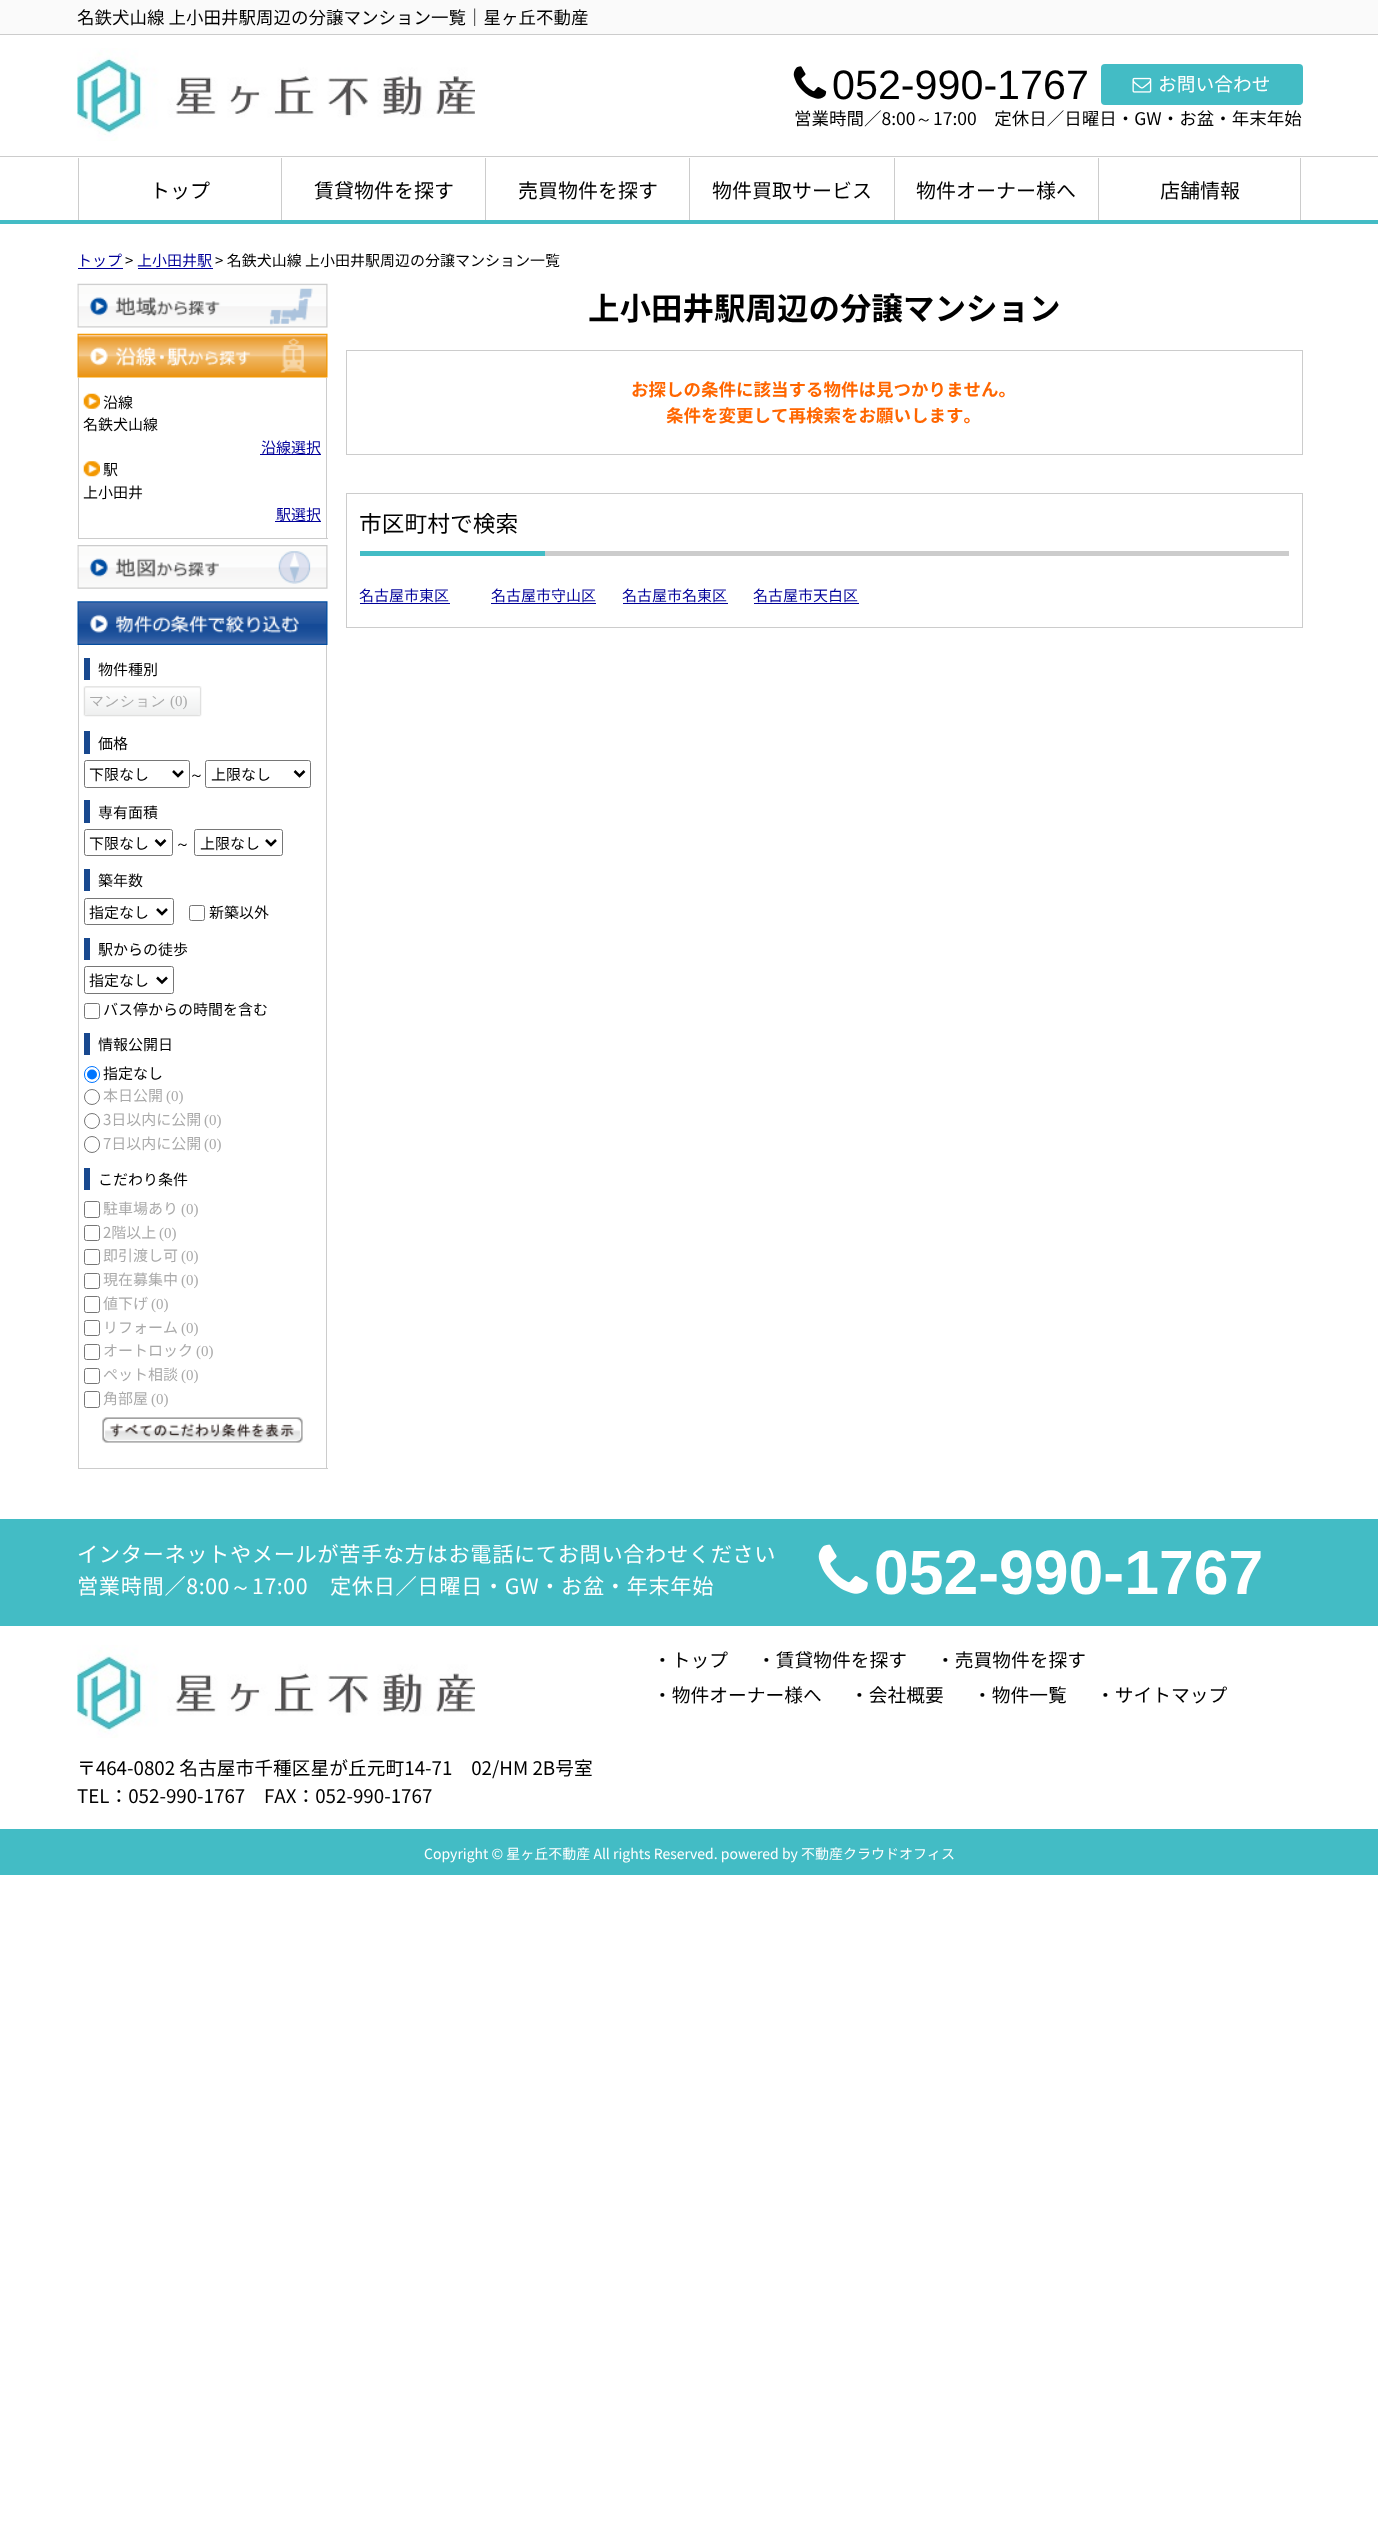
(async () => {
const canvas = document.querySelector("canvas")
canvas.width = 1378
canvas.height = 2534
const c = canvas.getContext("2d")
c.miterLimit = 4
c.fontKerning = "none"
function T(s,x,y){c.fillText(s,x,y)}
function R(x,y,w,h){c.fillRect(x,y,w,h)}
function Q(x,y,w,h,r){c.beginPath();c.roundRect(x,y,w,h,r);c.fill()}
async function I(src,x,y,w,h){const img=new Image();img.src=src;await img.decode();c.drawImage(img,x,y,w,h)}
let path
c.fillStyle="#fff"
R(0,0,1378,2534)
c.fillStyle="#fafafa"
R(0,0,1378,34)
c.fillStyle="#ccc"
R(0,34,1378,1)
c.font="17.5px Noto Sans JP"
c.fillStyle="#000"
T("名鉄犬山線 上小田井駅周辺の分譲マンション一覧｜星ヶ丘不動産",77,24)
await I("1.png",77,48,398,93)
await I("2.png",793,66,34,33)
c.font="41.25px Liberation Sans"
T("052-990-1767",832,99)
c.fillStyle="#43bcc5"
Q(1101,64,202,41,4)
await I("3.png",1132,77,20,16)
c.font="18.75px Noto Sans JP"
c.fillStyle="#fff"
T("お問い合わせ",1158,91)
c.font="17.5px Noto Sans JP"
c.fillStyle="#000"
T("営業時間／8:00",794,125)
c.font="500 17.5px WenQuanYi Zen Hei"
T("～",915,125)
c.font="17.5px Noto Sans JP"
T("17:00　定休日／日曜日・GW・お盆・年末年始",933,125)
c.fillStyle="#ccc"
R(0,156,1378,1)
c.fillStyle="#43bcc5"
R(0,220,1378,4)
c.fillStyle="#ccc"
R(78,158,1,62)
c.font="20px Noto Sans JP"
c.fillStyle="#000"
T("トップ",150,198)
c.fillStyle="#ccc"
R(281,158,1,62)
c.fillStyle="#000"
T("賃貸物件を探す",314,198)
c.fillStyle="#ccc"
R(485,158,1,62)
c.fillStyle="#000"
T("売買物件を探す",518,198)
c.fillStyle="#ccc"
R(689,158,1,62)
c.fillStyle="#000"
T("物件買取サービス",712,198)
c.fillStyle="#ccc"
R(894,158,1,62)
c.fillStyle="#000"
T("物件オーナー様へ",916,198)
c.fillStyle="#ccc"
R(1300,158,1,62)
R(1098,158,1,62)
c.fillStyle="#000"
T("店舗情報",1160,198)
c.font="15px Noto Sans JP"
c.fillStyle="#009"
T("トップ",77,266)
R(78,268,45,1)
c.fillStyle="#000"
T(">",125,266)
c.fillStyle="#009"
T("上小田井駅",137,266)
R(138,268,75,1)
c.fillStyle="#000"
T("> 名鉄犬山線 上小田井駅周辺の分譲マンション一覧",215,266)
await I("4.png",77,283,251,45)
await I("5.png",77,333,251,45)
c.fillStyle="#ccc"
R(326,378,1,161)
R(78,538,250,1)
R(78,378,1,161)
await I("6.png",83,393,17,16)
c.fillStyle="#000"
T("沿線",103,408)
T("名鉄犬山線",83,430)
c.fillStyle="#009"
R(260,454,61,1)
T("沿線選択",261,453)
await I("7.png",83,461,17,16)
c.fillStyle="#000"
T("駅",103,475)
T("上小田井",83,498)
c.fillStyle="#009"
R(275,521,46,1)
T("駅選択",276,520)
await I("8.png",77,545,251,44)
await I("9.png",77,601,251,44)
c.fillStyle="#ccc"
R(326,645,1,824)
R(78,1468,250,1)
R(78,645,1,824)
c.fillStyle="#18488e"
R(84,658,6,22)
c.fillStyle="#000"
T("物件種別",98,675)
await I("10.png",83,686,119,31)
c.font="500 15px WenQuanYi Zen Hei"
c.fillStyle="#aaa"
T("マンション",89,706)
c.font="15px Liberation Serif"
T("(0)",170,706)
c.fillStyle="#18488e"
R(84,731,6,23)
c.font="15px Noto Sans JP"
c.fillStyle="#000"
T("価格",98,749)
c.beginPath()
c.roundRect(84.5,760.5,105,27,2)
c.strokeStyle="#767676"
c.stroke()
path = new Path2D("M173 771l5 5l5-5")
c.strokeStyle="#000"
c.lineWidth=2.5
c.stroke(path)
T("下限なし",89,780)
c.font="500 15px WenQuanYi Zen Hei"
T("～",189,780)
c.beginPath()
c.roundRect(205.5,760.5,105,27,2)
c.strokeStyle="#767676"
c.lineWidth=1
c.stroke()
path = new Path2D("M294.5 771l5 5l5-5")
c.strokeStyle="#000"
c.lineWidth=2.5
c.stroke(path)
c.font="15px Noto Sans JP"
T("上限なし",211,780)
c.fillStyle="#18488e"
R(84,800,6,23)
c.fillStyle="#000"
T("専有面積",98,818)
c.beginPath()
c.roundRect(84.5,829.5,88,26,2)
c.strokeStyle="#767676"
c.lineWidth=1
c.stroke()
path = new Path2D("M155.5 840l5 5l5-5")
c.strokeStyle="#000"
c.lineWidth=2.5
c.stroke(path)
T("下限なし",89,849)
c.font="500 15px WenQuanYi Zen Hei"
T("～",175,849)
c.beginPath()
c.roundRect(194.5,829.5,88,26,2)
c.strokeStyle="#767676"
c.lineWidth=1
c.stroke()
path = new Path2D("M266 840l5 5l5-5")
c.strokeStyle="#000"
c.lineWidth=2.5
c.stroke(path)
c.font="15px Noto Sans JP"
T("上限なし",200,849)
c.fillStyle="#18488e"
R(84,869,6,22)
c.fillStyle="#000"
T("築年数",98,886)
c.beginPath()
c.roundRect(84.5,898.5,89,26,2)
c.strokeStyle="#767676"
c.lineWidth=1
c.stroke()
path = new Path2D("M157 909l5 5l5-5")
c.strokeStyle="#000"
c.lineWidth=2.5
c.stroke(path)
T("指定なし",89,918)
c.beginPath()
c.roundRect(189.5,905.5,15,15,2)
c.strokeStyle="#767676"
c.lineWidth=1
c.stroke()
T("新築以外",209,918)
c.fillStyle="#18488e"
R(84,938,6,22)
c.fillStyle="#000"
T("駅からの徒歩",98,955)
c.beginPath()
c.roundRect(84.5,966.5,89,27,2)
c.stroke()
path = new Path2D("M157 977.5l5 5l5-5")
c.strokeStyle="#000"
c.lineWidth=2.5
c.stroke(path)
T("指定なし",89,986)
c.beginPath()
c.roundRect(84.5,1003.5,15,15,2)
c.strokeStyle="#767676"
c.lineWidth=1
c.stroke()
T("バス停からの時間を含む",103,1015)
c.fillStyle="#18488e"
R(84,1033,6,22)
c.fillStyle="#000"
T("情報公開日",98,1050)
c.beginPath()
c.roundRect(84.5,1066.5,15,16,7.5)
c.strokeStyle="#0075ff"
c.stroke()
c.fillStyle="#0075ff"
c.beginPath()
c.arc(92,1074.5,5,0,7)
c.fill()
c.fillStyle="#000"
T("指定なし",103,1079)
c.beginPath()
c.arc(92,1097,7.5,0,7)
c.strokeStyle="#767676"
c.stroke()
c.fillStyle="#aaa"
T("本日公開",103,1101)
c.font="15px Liberation Serif"
T("(0)",166,1101)
c.beginPath()
c.arc(92,1121,7.5,0,7)
c.stroke()
c.font="15px Noto Sans JP"
T("3日以内に公開",103,1125)
c.font="15px Liberation Serif"
T("(0)",204,1125)
c.beginPath()
c.roundRect(84.5,1136.5,15,16,7.5)
c.stroke()
c.font="15px Noto Sans JP"
T("7日以内に公開",103,1149)
c.font="15px Liberation Serif"
T("(0)",204,1149)
c.fillStyle="#18488e"
R(84,1168,6,22)
c.font="15px Noto Sans JP"
c.fillStyle="#000"
T("こだわり条件",98,1185)
c.beginPath()
c.roundRect(84.5,1201.5,15,16,2)
c.stroke()
c.fillStyle="#aaa"
T("駐車場あり",103,1214)
c.font="15px Liberation Serif"
T("(0)",181,1214)
c.beginPath()
c.roundRect(84.5,1225.5,15,15,2)
c.stroke()
c.font="15px Noto Sans JP"
T("2階以上",103,1238)
c.font="15px Liberation Serif"
T("(0)",159,1238)
c.beginPath()
c.roundRect(84.5,1249.5,15,15,2)
c.stroke()
c.font="15px Noto Sans JP"
T("即引渡し可",103,1261)
c.font="15px Liberation Serif"
T("(0)",181,1261)
c.beginPath()
c.roundRect(84.5,1273.5,15,15,2)
c.stroke()
c.font="15px Noto Sans JP"
T("現在募集中",103,1285)
c.font="15px Liberation Serif"
T("(0)",181,1285)
c.beginPath()
c.roundRect(84.5,1296.5,15,16,2)
c.stroke()
c.font="15px Noto Sans JP"
T("値下げ",103,1309)
c.font="15px Liberation Serif"
T("(0)",151,1309)
c.beginPath()
c.roundRect(84.5,1320.5,15,15,2)
c.stroke()
c.font="15px Noto Sans JP"
T("リフォーム",103,1333)
c.font="15px Liberation Serif"
T("(0)",181,1333)
c.beginPath()
c.roundRect(84.5,1344.5,15,15,2)
c.stroke()
c.font="15px Noto Sans JP"
T("オートロック",103,1356)
c.font="15px Liberation Serif"
T("(0)",196,1356)
c.beginPath()
c.roundRect(84.5,1368.5,15,15,2)
c.stroke()
c.font="15px Noto Sans JP"
T("ペット相談",103,1380)
c.font="15px Liberation Serif"
T("(0)",181,1380)
c.beginPath()
c.roundRect(84.5,1391.5,15,16,2)
c.stroke()
c.font="15px Noto Sans JP"
T("角部屋",103,1404)
c.font="15px Liberation Serif"
T("(0)",151,1404)
await I("11.png",102,1417,201,26)
c.font="bold 31.5px Noto Sans JP"
c.fillStyle="#000"
T("上小田井駅周辺の分譲マンション",588,320)
c.strokeStyle="#ccc"
c.strokeRect(346.5,350.5,956,104)
c.font="bold 17.5px Noto Sans JP"
c.fillStyle="#f60"
T("お探しの条件に該当する物件は見つかりません。",631,396)
T("条件を変更して再検索をお願いします。",666,422)
c.strokeRect(346.5,493.5,956,134)
c.fillStyle="#ccc"
R(545,551,744,5)
c.font="22.75px Noto Sans JP"
c.fillStyle="#000"
T("市区町村で検索",359,532)
c.fillStyle="#43bcc5"
R(360,551,185,5)
c.font="15px Noto Sans JP"
c.fillStyle="#009"
T("名古屋市東区",359,601)
R(360,603,90,1)
T("名古屋市守山区",491,601)
R(491,603,105,1)
T("名古屋市名東区",622,601)
R(623,603,105,1)
T("名古屋市天白区",753,601)
R(754,603,105,1)
c.fillStyle="#43bcc5"
R(0,1519,1378,107)
c.letterSpacing="0.6px"
c.font="21.25px Noto Sans JP"
c.fillStyle="#fff"
T("インターネットやメールが苦手な方はお電話にてお問い合わせください",77,1562)
T("営業時間／8:00",77,1594)
c.font="500 21.25px WenQuanYi Zen Hei"
T("～",230,1594)
c.font="21.25px Noto Sans JP"
T("17:00　定休日／日曜日・GW・お盆・年末年始",252,1594)
await I("12.png",818,1544,50,50)
c.letterSpacing="0px"
c.font="bold 62.5px Liberation Sans"
T("052-990-1767",874,1594)
c.font="18.75px Noto Sans JP"
c.fillStyle="#000"
T("・トップ",653,1667)
T("・賃貸物件を探す",757,1667)
T("・売買物件を探す",936,1667)
T("・物件オーナー様へ",653,1702)
T("・会社概要",850,1702)
T("・物件一覧",973,1702)
T("・サイトマップ",1096,1702)
await I("13.png",77,1645,398,93)
T("〒464-0802 名古屋市千種区星が丘元町14-71　02/HM 2B号室",77,1775)
T("TEL：052-990-1767　FAX：052-990-1767",77,1803)
c.fillStyle="#43bcc5"
R(0,1829,1378,46)
c.font="14px Noto Sans JP"
c.fillStyle="#fff"
T("Copyright © 星ヶ丘不動産 All rights Reserved. powered by 不動産クラウドオフィス",424,1859)
})()
